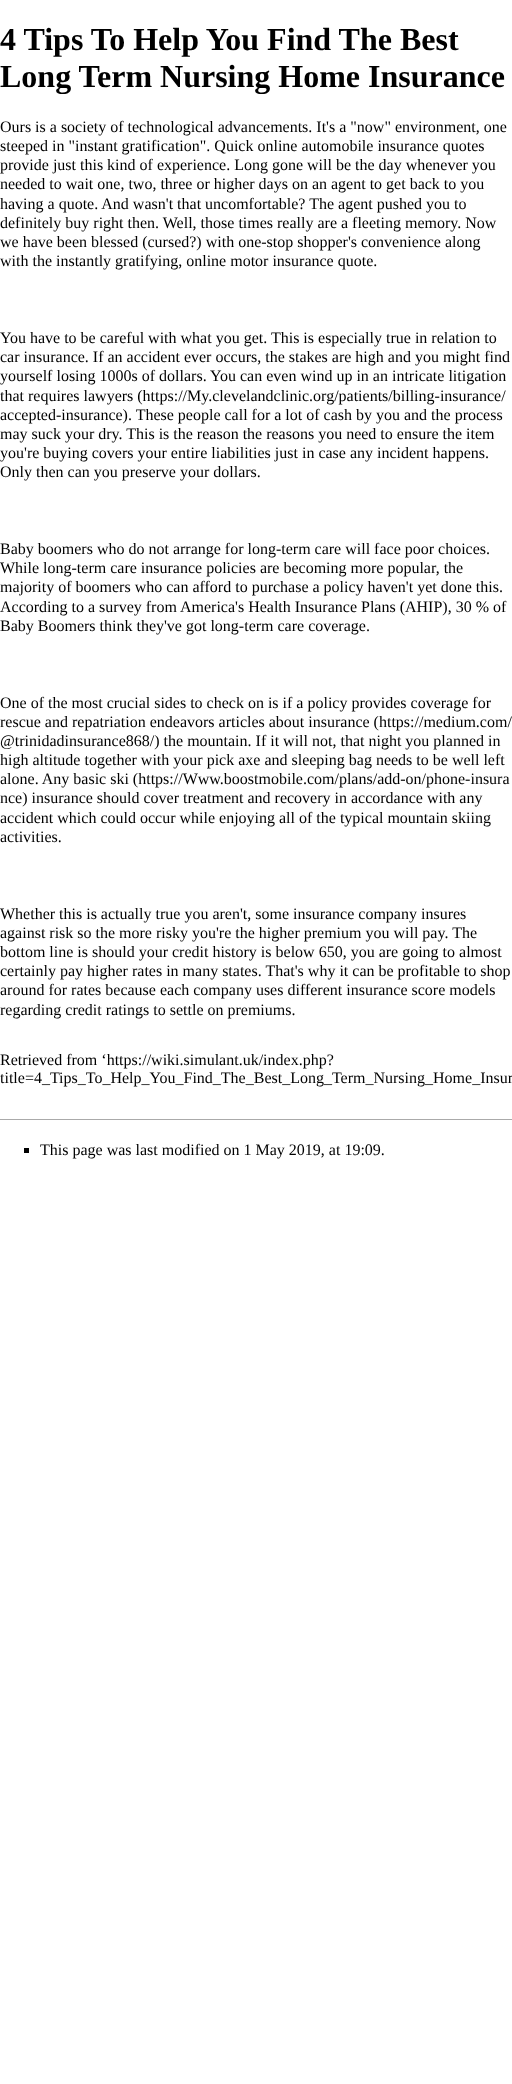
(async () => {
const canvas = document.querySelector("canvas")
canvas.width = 512
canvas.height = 2084
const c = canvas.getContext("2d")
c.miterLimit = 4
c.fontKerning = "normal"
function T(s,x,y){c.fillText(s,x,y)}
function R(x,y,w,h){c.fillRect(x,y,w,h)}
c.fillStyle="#fff"
R(0,0,512,2084)
c.font="bold 32px Liberation Serif"
c.fillStyle="#000"
T("4 Tips To Help You Find The Best",0,50)
T("Long Term Nursing Home Insurance",0,87)
c.font="16px Liberation Serif"
T("Ours is a society of technological advancements. It's a \"now\" environment, one",0,132)
T("steeped in \"instant gratification\". Quick online automobile insurance quotes",0,151)
T("provide just this kind of experience. Long gone will be the day whenever you",0,170)
T("needed to wait one, two, three or higher days on an agent to get back to you",0,189)
T("having a quote. And wasn't that uncomfortable? The agent pushed you to",0,209)
T("definitely buy right then. Well, those times really are a fleeting memory. Now",0,228)
T("we have been blessed (cursed?) with one-stop shopper's convenience along",0,247)
T("with the instantly gratifying, online motor insurance quote.",0,266)
T("You have to be careful with what you get. This is especially true in relation to",0,343)
T("car insurance. If an accident ever occurs, the stakes are high and you might find",0,362)
T("yourself losing 1000s of dollars. You can even wind up in an intricate litigation",0,381)
T("that requires lawyers (https://My.clevelandclinic.org/patients/billing-insurance/",0,401)
T("accepted-insurance). These people call for a lot of cash by you and the process",0,420)
T("may suck your dry. This is the reason the reasons you need to ensure the item",0,439)
T("you're buying covers your entire liabilities just in case any incident happens.",0,458)
T("Only then can you preserve your dollars.",0,477)
T("Baby boomers who do not arrange for long-term care will face poor choices.",0,554)
T("While long-term care insurance policies are becoming more popular, the",0,573)
T("majority of boomers who can afford to purchase a policy haven't yet done this.",0,592)
T("According to a survey from America's Health Insurance Plans (AHIP), 30 % of",0,612)
T("Baby Boomers think they've got long-term care coverage.",0,631)
T("One of the most crucial sides to check on is if a policy provides coverage for",0,708)
T("rescue and repatriation endeavors articles about insurance (https://medium.com/",0,727)
T("@trinidadinsurance868/) the mountain. If it will not, that night you planned in",0,746)
T("high altitude together with your pick axe and sleeping bag needs to be well left",0,765)
T("alone. Any basic ski (https://Www.boostmobile.com/plans/add-on/phone-insura",0,784)
T("nce) insurance should cover treatment and recovery in accordance with any",0,803)
T("accident which could occur while enjoying all of the typical mountain skiing",0,823)
T("activities.",0,842)
T("Whether this is actually true you aren't, some insurance company insures",0,919)
T("against risk so the more risky you're the higher premium you will pay. The",0,938)
T("bottom line is should your credit history is below 650, you are going to almost",0,957)
T("certainly pay higher rates in many states. That's why it can be profitable to shop",0,976)
T("around for rates because each company uses different insurance score models",0,995)
T("regarding credit ratings to settle on premiums.",0,1015)
T("Retrieved from ‘https://wiki.simulant.uk/index.php?",0,1065)
T("title=4_Tips_To_Help_You_Find_The_Best_Long_Term_Nursing_Home_Insur",0,1083)
c.fillStyle="#aaa"
R(0,1119,512,1)
c.fillStyle="#000"
R(24,1148,5,5)
T("This page was last modified on 1 May 2019, at 19:09.",40,1155)
})()
